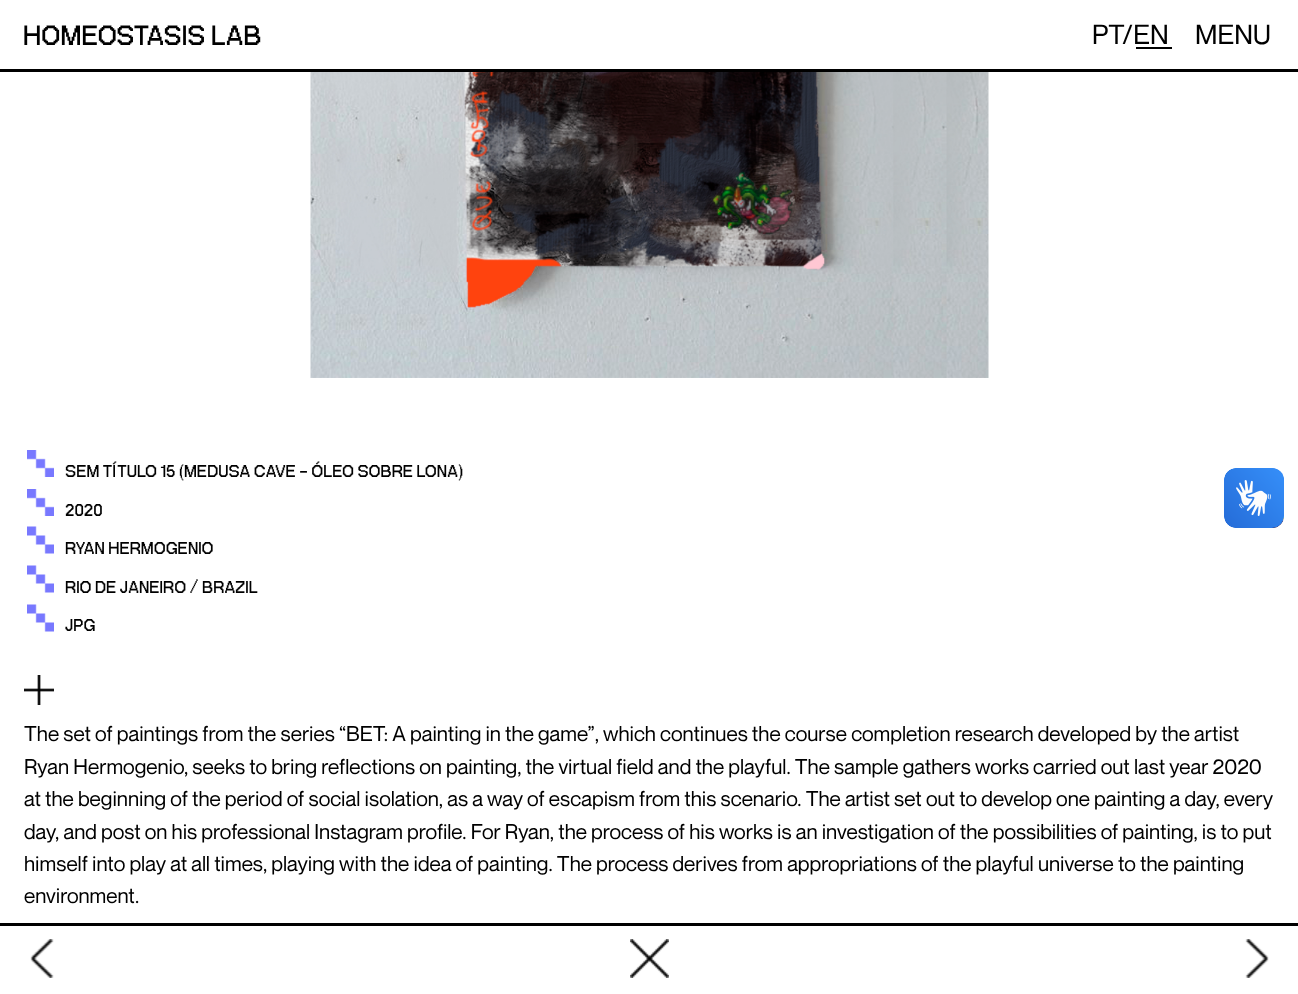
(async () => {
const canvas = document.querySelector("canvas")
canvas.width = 1298
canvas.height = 994
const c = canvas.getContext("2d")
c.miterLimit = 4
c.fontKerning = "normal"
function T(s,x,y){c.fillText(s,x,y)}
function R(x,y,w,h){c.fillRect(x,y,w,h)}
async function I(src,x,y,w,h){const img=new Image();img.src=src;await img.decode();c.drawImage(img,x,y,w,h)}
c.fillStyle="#fff"
R(0,0,1298,994)
c.fillStyle="#000"
R(0,69,1298,3)
c.font="bold 39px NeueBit"
T("HOMEOSTASIS LAB",23,45)
c.font="27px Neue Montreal"
T("PT/EN",1092,44)
R(1136,47,36,2)
T("MENU",1195,44)
await I("1.png",310,72,679,306)
await I("2.png",27,450,27,27)
c.font="bold 24px NeueBit"
T("SEM TÍTULO 15 (MEDUSA CAVE - ÓLEO SOBRE LONA)",65,477)
await I("2.png",27,489,27,27)
T("2020",65,516)
await I("3.png",27,526,27,28)
T("RYAN HERMOGENIO",65,554)
await I("3.png",27,565,27,28)
T("RIO DE JANEIRO / BRAZIL",65,593)
await I("3.png",27,604,27,28)
T("JPG",65,631)
await I("4.png",24,675,30,30)
c.font="21px Neue Montreal"
T("The set of paintings from the series “BET: A painting in the game”, which continues the course completion research developed by the artist",24,741)
T("Ryan Hermogenio, seeks to bring reflections on painting, the virtual field and the playful. The sample gathers works carried out last year 2020",24,774)
T("at the beginning of the period of social isolation, as a way of escapism from this scenario. The artist set out to develop one painting a day, every",24,806)
T("day, and post on his professional Instagram profile. For Ryan, the process of his works is an investigation of the possibilities of painting, is to put",24,839)
T("himself into play at all times, playing with the idea of painting. The process derives from appropriations of the playful universe to the painting",24,871)
T("environment.",24,903)
await I("5.png",1224,468,60,60)
await I("6.png",1224,468,60,60)
R(0,923,1298,3)
await I("7.png",30,939,24,39)
await I("8.png",630,939,39,39)
await I("9.png",1245,939,24,39)
})()
